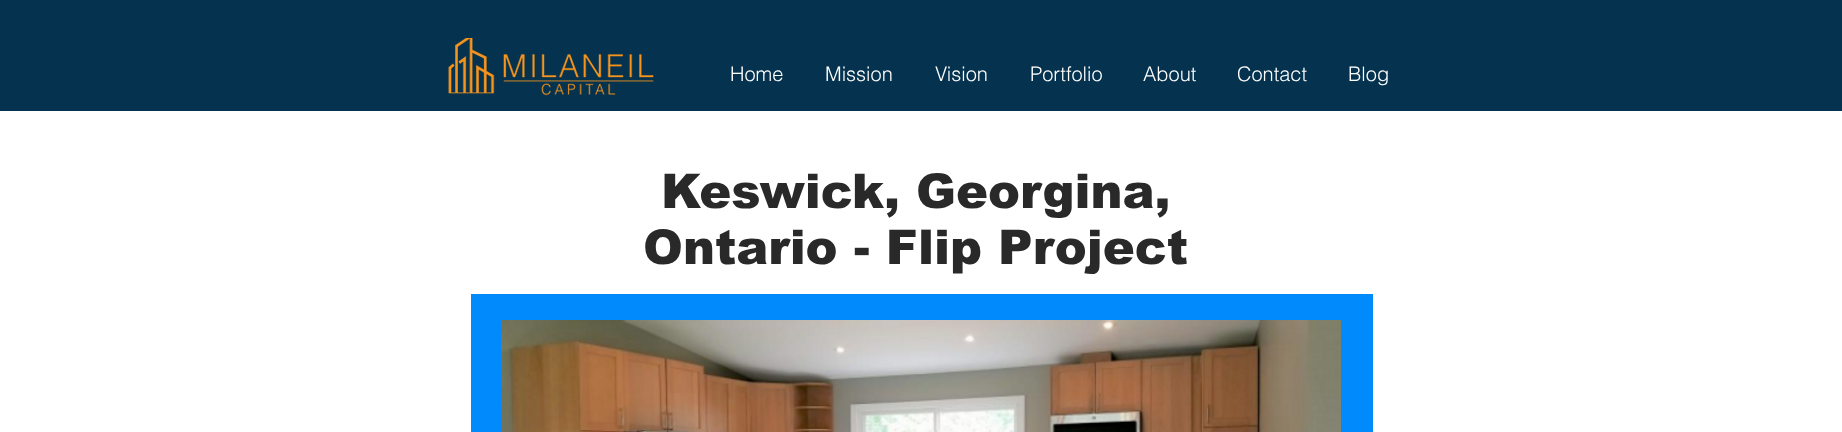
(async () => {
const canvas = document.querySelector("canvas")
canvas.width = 1842
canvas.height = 432
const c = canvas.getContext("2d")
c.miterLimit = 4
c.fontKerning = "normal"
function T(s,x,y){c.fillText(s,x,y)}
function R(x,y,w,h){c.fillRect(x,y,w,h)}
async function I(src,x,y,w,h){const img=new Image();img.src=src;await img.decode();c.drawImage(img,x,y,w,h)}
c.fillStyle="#fff"
R(0,0,1842,432)
c.fillStyle="#05334f"
R(0,0,1842,111)
await I("1.png",448,38,206,58)
c.font="300 20px helvetica"
c.fillStyle="#fffffe"
T("Home",730,81)
T("Mission",825,81)
T("Vision",935,81)
T("Portfolio",1030,81)
T("About",1143,81)
T("Contact",1237,81)
T("Blog",1348,81)
c.font="900 48px arial"
c.fillStyle="#292929"
T("Keswick, Georgina,",661,208)
T("Ontario - Flip Project",643,264)
c.fillStyle="#008afc"
R(471,294,902,138)
await I("2.png",501,320,840,112)
})()
